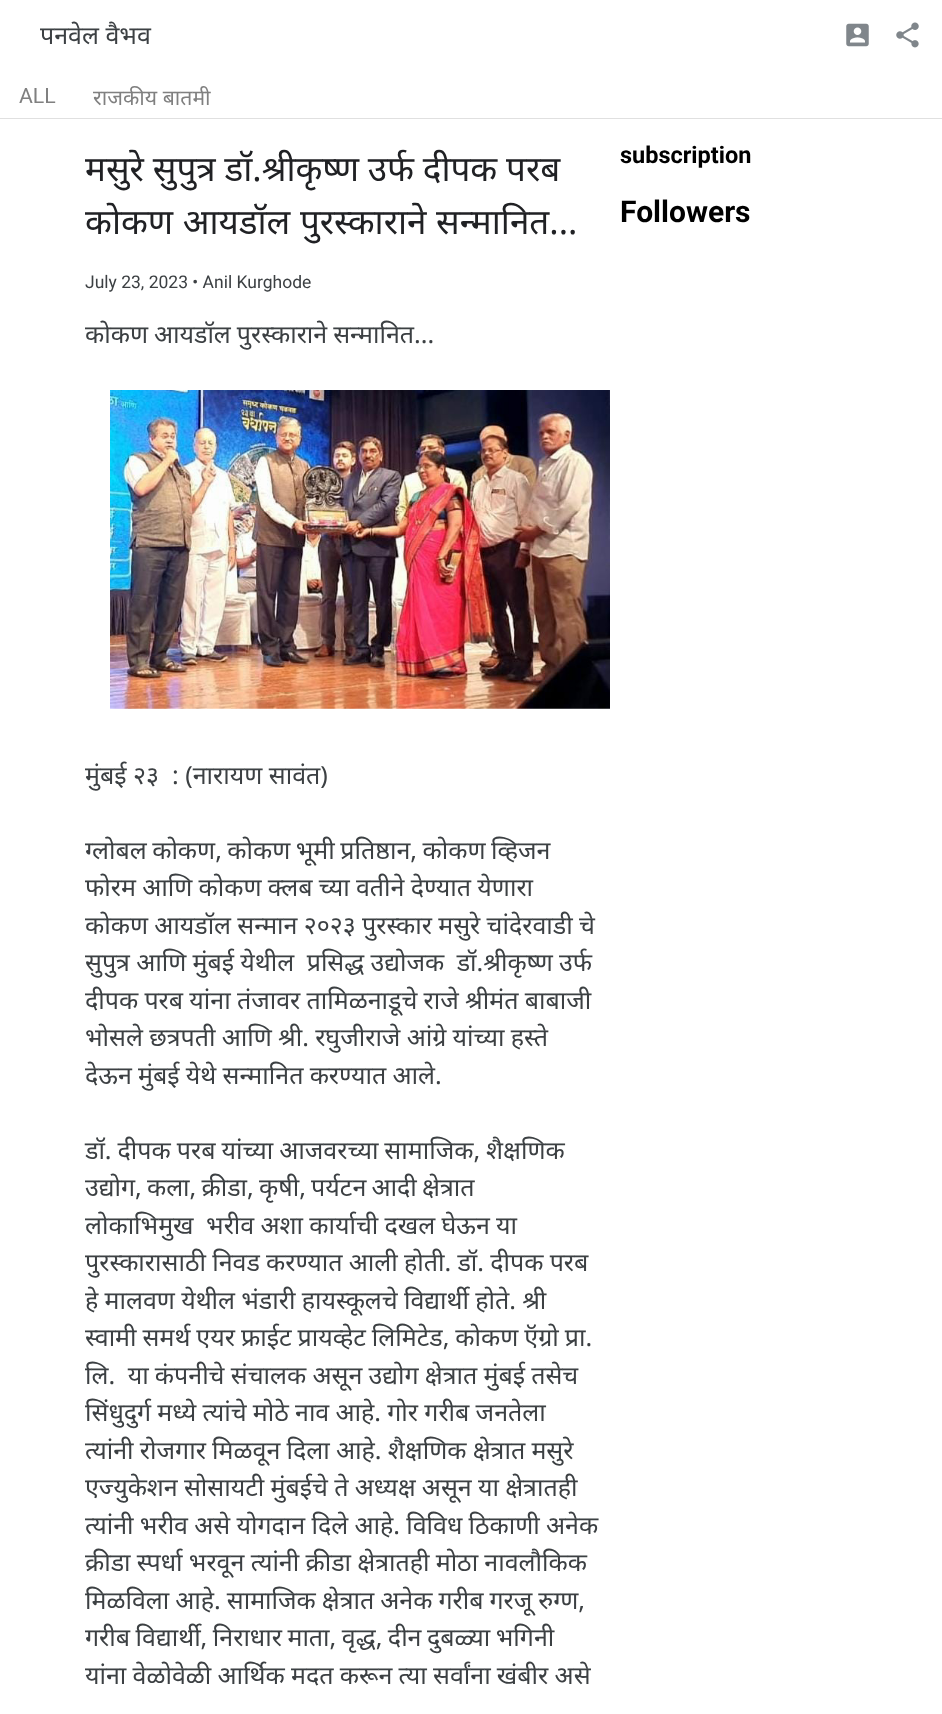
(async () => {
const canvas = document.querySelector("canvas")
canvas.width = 942
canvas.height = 1714
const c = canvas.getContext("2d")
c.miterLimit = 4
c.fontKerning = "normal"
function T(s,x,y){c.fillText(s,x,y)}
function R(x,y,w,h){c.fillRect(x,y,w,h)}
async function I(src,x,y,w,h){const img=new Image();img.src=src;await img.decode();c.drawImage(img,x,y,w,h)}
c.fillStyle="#fff"
R(0,0,942,1714)
c.fillStyle="#e0e0e0"
R(0,118,942,1)
c.font="25px Noto Sans"
c.fillStyle="#3c4043"
T("पनवेल वैभव",40,44)
await I("1.png",846,23,23,24)
await I("2.png",896,22,23,26)
c.font="21.25px Roboto"
c.fillStyle="#808080"
T("ALL",19,103)
c.font="21.25px Noto Sans"
T("राजकीय बातमी",93,105)
c.wordSpacing="-0.25px"
c.font="35px Noto Sans"
c.fillStyle="#202124"
T("मसुरे सुपुत्र डॉ.श्रीकृष्ण उर्फ दीपक परब",85,181)
c.save()
c.beginPath()
c.rect(85,144,515,105)
c.clip()
c.wordSpacing="0.5px"
T("कोकण आयडॉल पुरस्काराने सन्मानित...",85,234)
c.restore()
c.wordSpacing="0px"
c.font="17.5px Roboto"
c.fillStyle="#3c4043"
T("July 23, 2023 • Anil Kurghode",85,288)
c.wordSpacing="-0.5px"
c.font="25px Noto Sans"
T("कोकण आयडॉल पुरस्काराने सन्मानित...",85,343)
await I("3.png",110,390,500,319)
c.wordSpacing="0px"
T("मुंबई २३  : (नारायण सावंत)",85,784)
c.wordSpacing="-1px"
T("ग्लोबल कोकण, कोकण भूमी प्रतिष्ठान, कोकण व्हिजन",85,859)
c.wordSpacing="-0.25px"
T("फोरम आणि कोकण क्लब च्या वतीने देण्यात येणारा",85,896)
T("कोकण आयडॉल सन्मान २०२३ पुरस्कार मसुरे चांदेरवाडी चे",85,934)
T("सुपुत्र आणि मुंबई येथील  प्रसिद्ध उद्योजक  डॉ.श्रीकृष्ण उर्फ",85,971)
T("दीपक परब यांना तंजावर तामिळनाडूचे राजे श्रीमंत बाबाजी",85,1009)
T("भोसले छत्रपती आणि श्री. रघुजीराजे आंग्रे यांच्या हस्ते",85,1046)
T("देऊन मुंबई येथे सन्मानित करण्यात आले.",85,1084)
c.wordSpacing="-0.5px"
T("डॉ. दीपक परब यांच्या आजवरच्या सामाजिक, शैक्षणिक",85,1159)
c.wordSpacing="-1.25px"
T("उद्योग, कला, क्रीडा, कृषी, पर्यटन आदी क्षेत्रात",85,1196)
c.wordSpacing="-0.25px"
T("लोकाभिमुख  भरीव अशा कार्याची दखल घेऊन या",85,1234)
T("पुरस्कारासाठी निवड करण्यात आली होती. डॉ. दीपक परब",85,1271)
T("हे मालवण येथील भंडारी हायस्कूलचे विद्यार्थी होते. श्री",85,1309)
c.wordSpacing="-0.5px"
T("स्वामी समर्थ एयर फ्राईट प्रायव्हेट लिमिटेड, कोकण ऍग्रो प्रा.",85,1346)
c.wordSpacing="-0.25px"
T("लि.  या कंपनीचे संचालक असून उद्योग क्षेत्रात मुंबई तसेच",85,1384)
T("सिंधुदुर्ग मध्ये त्यांचे मोठे नाव आहे. गोर गरीब जनतेला",85,1421)
T("त्यांनी रोजगार मिळवून दिला आहे. शैक्षणिक क्षेत्रात मसुरे",85,1459)
T("एज्युकेशन सोसायटी मुंबईचे ते अध्यक्ष असून या क्षेत्रातही",85,1496)
T("त्यांनी भरीव असे योगदान दिले आहे. विविध ठिकाणी अनेक",85,1534)
T("क्रीडा स्पर्धा भरवून त्यांनी क्रीडा क्षेत्रातही मोठा नावलौकिक",85,1571)
c.wordSpacing="-0.5px"
T("मिळविला आहे. सामाजिक क्षेत्रात अनेक गरीब गरजू रुग्ण,",85,1609)
c.wordSpacing="-1px"
T("गरीब विद्यार्थी, निराधार माता, वृद्ध, दीन दुबळ्या भगिनी",85,1646)
c.wordSpacing="-0.25px"
T("यांना वेळोवेळी आर्थिक मदत करून त्या सर्वांना खंबीर असे",85,1684)
c.wordSpacing="0px"
c.font="bold 23.5px Roboto"
c.fillStyle="#000"
T("subscription",620,163)
c.font="bold 30px Roboto"
T("Followers",620,222)
})()
